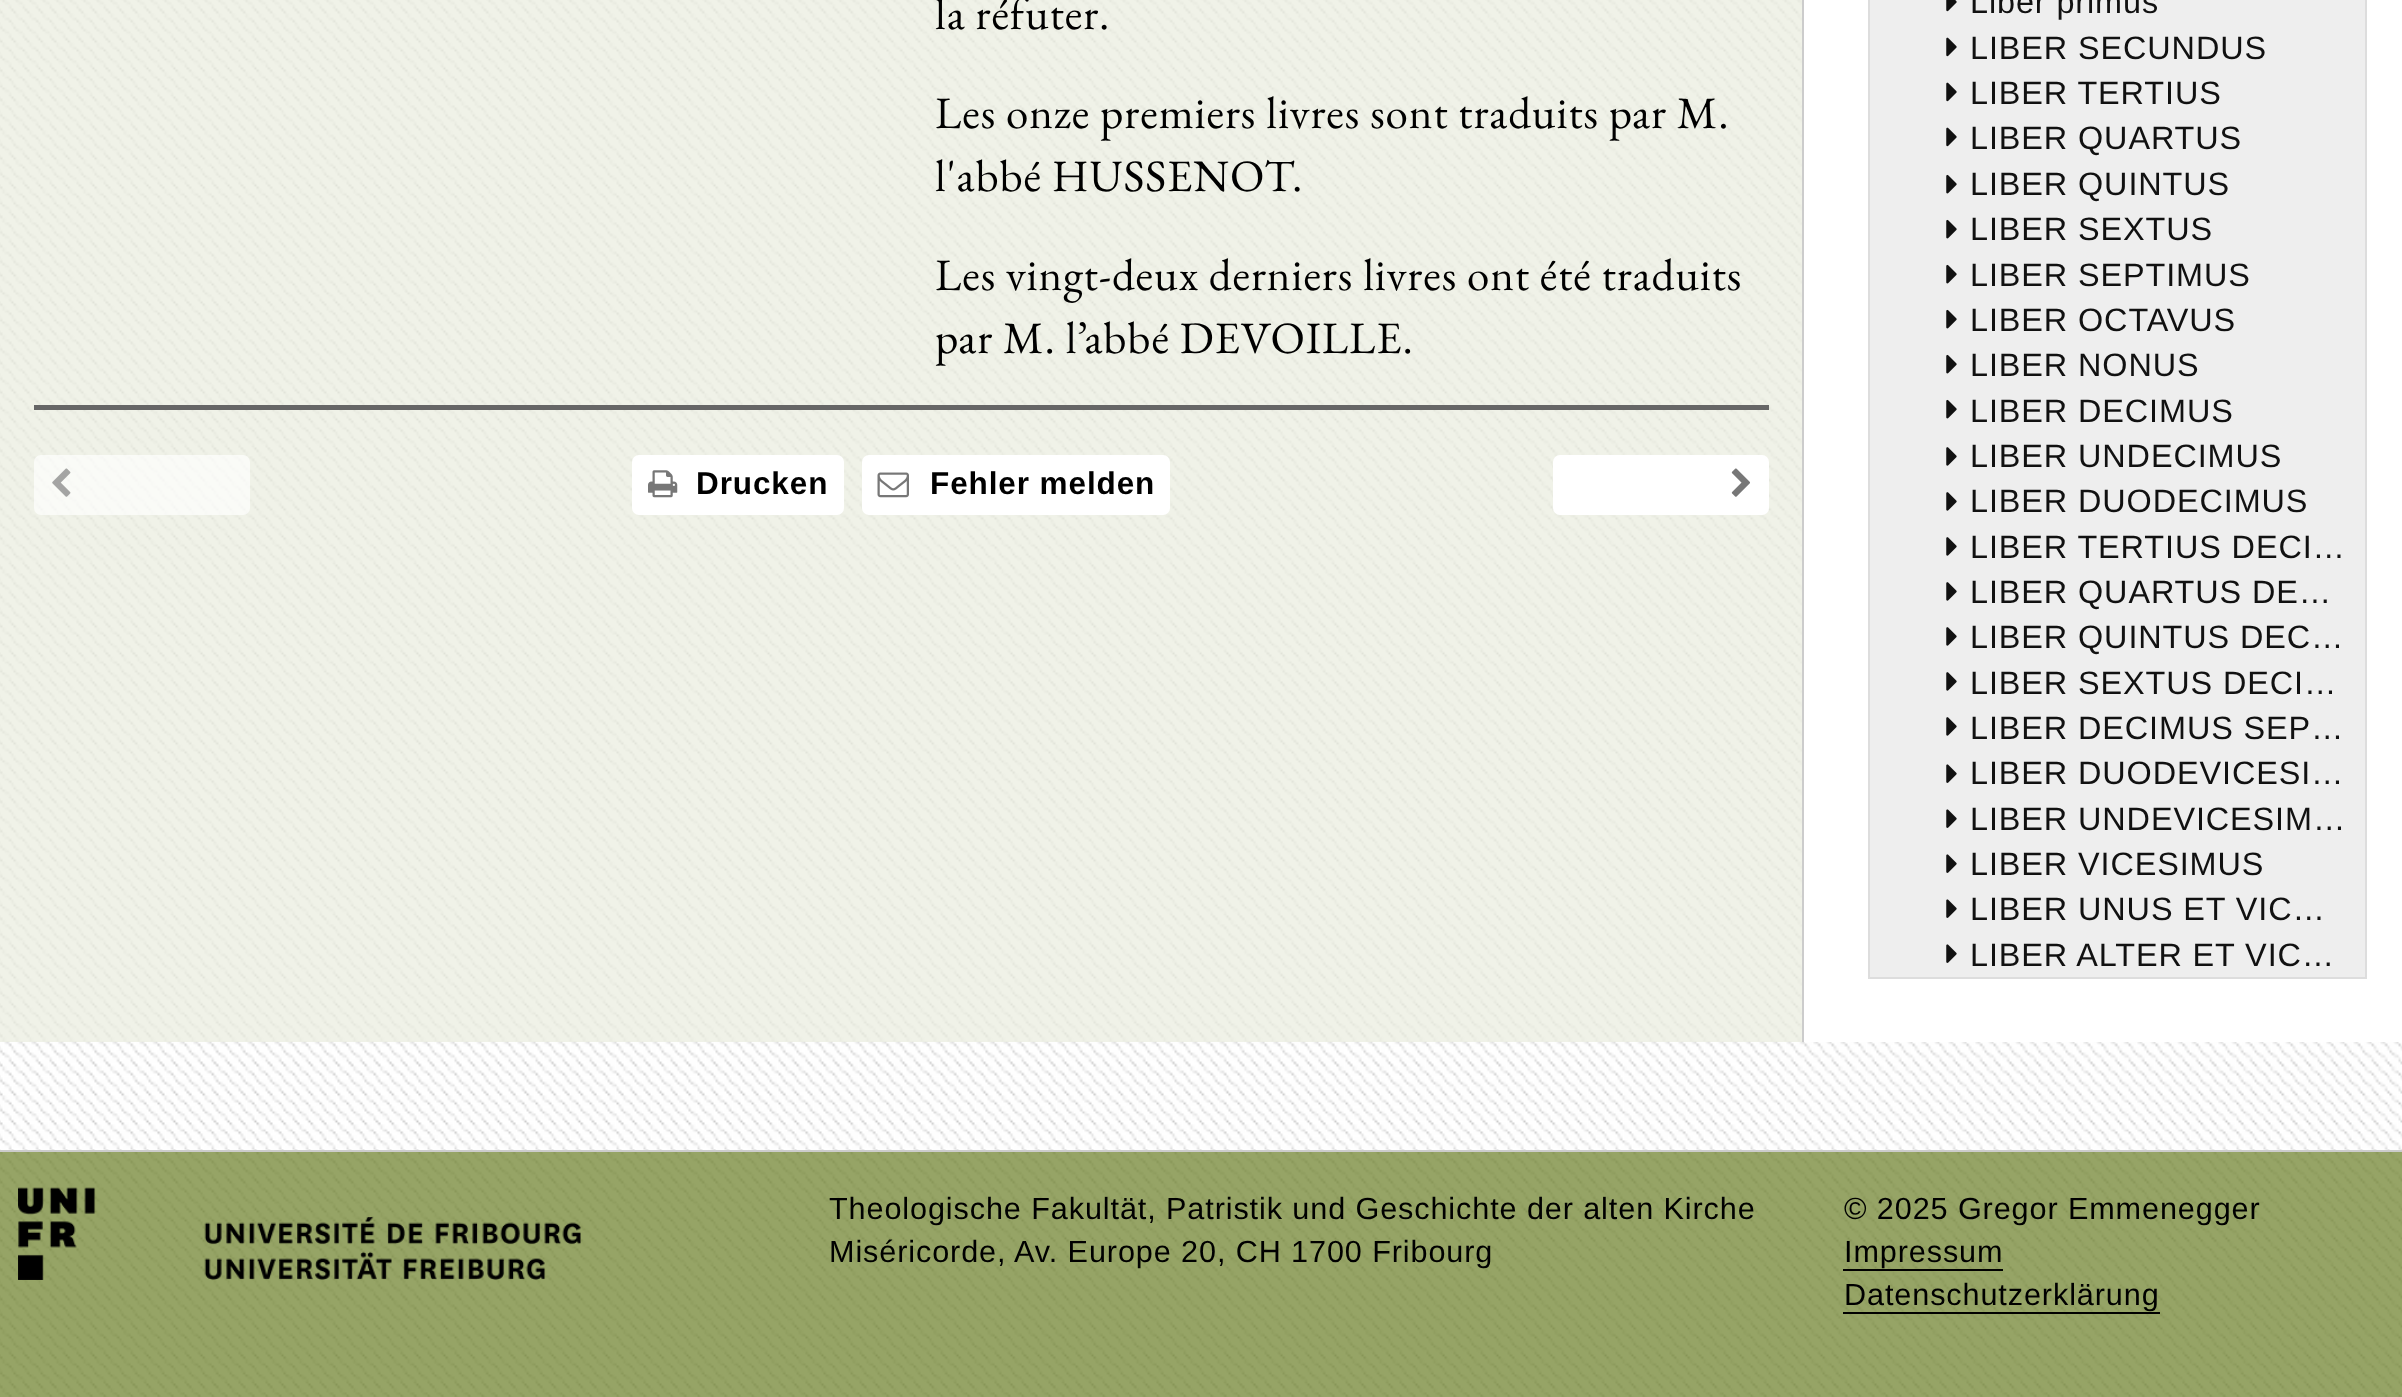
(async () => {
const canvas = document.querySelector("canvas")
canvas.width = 2402
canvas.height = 1397
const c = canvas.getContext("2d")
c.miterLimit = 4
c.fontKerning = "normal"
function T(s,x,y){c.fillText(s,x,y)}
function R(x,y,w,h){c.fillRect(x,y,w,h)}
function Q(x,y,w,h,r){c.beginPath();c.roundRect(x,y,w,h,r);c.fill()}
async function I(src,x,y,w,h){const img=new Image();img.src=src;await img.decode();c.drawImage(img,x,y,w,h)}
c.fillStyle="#fff"
R(0,0,2402,1397)
await I("1.png",0,0,2402,1397)
c.fillStyle="#e9ecdeb3"
R(0,0,1802,1042)
c.letterSpacing="0.9px"
c.font="45px EB Garamond"
c.fillStyle="#000"
T("la réfuter.",935,29)
T("Les onze premiers livres sont traduits par M.",935,128)
T("l'abbé HUSSENOT.",935,191)
T("Les vingt-deux derniers livres ont été traduits",935,290)
T("par M. l’abbé DEVOILLE.",935,353)
c.fillStyle="#666"
R(34,405,1735,5)
c.fillStyle="#ffffffa6"
Q(34,455,216,60,7)
await I("2.png",52,468,19,29)
c.fillStyle="#fff"
Q(632,455,212,60,7)
await I("3.png",648,470,30,28)
c.font="bold 31.5px Liberation Sans"
c.fillStyle="#000"
T("Drucken",696,494)
c.fillStyle="#fff"
Q(862,455,308,60,7)
await I("4.png",877,472,32,26)
c.fillStyle="#000"
T("Fehler melden",930,494)
c.fillStyle="#fff"
Q(1553,455,216,60,7)
await I("5.png",1731,468,19,29)
R(1804,0,598,1042)
c.fillStyle="#ccc"
R(1802,0,2,1042)
c.fillStyle="#eee"
c.beginPath()
c.rect(1869,-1,497,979)
c.fill()
c.strokeStyle="#ddd"
c.lineWidth=2
c.stroke()
await I("6.png",1946,0,11,12)
c.font="32.4px Liberation Sans"
c.fillStyle="#111"
T("Liber primus",1970,13)
await I("7.png",1946,37,11,20)
T("LIBER SECUNDUS",1970,59)
await I("7.png",1946,82,11,20)
T("LIBER TERTIUS",1970,104)
await I("7.png",1946,127,11,20)
T("LIBER QUARTUS",1970,149)
await I("8.png",1946,174,11,20)
T("LIBER QUINTUS",1970,195)
await I("8.png",1946,219,11,20)
T("LIBER SEXTUS",1970,240)
await I("8.png",1946,264,11,20)
T("LIBER SEPTIMUS",1970,286)
await I("8.png",1946,309,11,20)
T("LIBER OCTAVUS",1970,331)
await I("8.png",1946,354,11,20)
T("LIBER NONUS",1970,376)
await I("8.png",1946,399,11,20)
T("LIBER DECIMUS",1970,422)
await I("9.png",1946,447,11,19)
T("LIBER UNDECIMUS",1970,467)
await I("9.png",1946,492,11,19)
T("LIBER DUODECIMUS",1970,512)
await I("9.png",1946,537,11,19)
T("LIBER TERTIUS DECI…",1970,558)
await I("9.png",1946,582,11,19)
T("LIBER QUARTUS DE…",1970,603)
await I("9.png",1946,627,11,19)
T("LIBER QUINTUS DEC…",1970,648)
await I("9.png",1946,672,11,19)
T("LIBER SEXTUS DECI…",1970,694)
await I("9.png",1946,717,11,19)
T("LIBER DECIMUS SEP…",1970,739)
await I("10.png",1946,764,11,19)
T("LIBER DUODEVICESI…",1970,784)
await I("10.png",1946,809,11,19)
T("LIBER UNDEVICESIM…",1970,830)
await I("10.png",1946,854,11,19)
T("LIBER VICESIMUS",1970,875)
await I("10.png",1946,899,11,19)
T("LIBER UNUS ET VIC…",1970,920)
await I("10.png",1946,944,11,19)
T("LIBER ALTER ET VIC…",1970,966)
c.fillStyle="#697d25b3"
R(0,1152,2402,245)
c.fillStyle="#ccc"
R(0,1150,2402,2)
await I("11.png",18,1187,563,93)
c.font="30.6px Liberation Sans"
c.fillStyle="#000"
T("Theologische Fakultät, Patristik und Geschichte der alten Kirche",829,1219)
T("Miséricorde, Av. Europe 20, CH 1700 Fribourg",829,1262)
T("© 2025 Gregor Emmenegger",1844,1219)
T("Impressum",1844,1262)
R(1843,1269,160,2)
T("Datenschutzerklärung",1844,1305)
R(1843,1312,317,2)
})()
